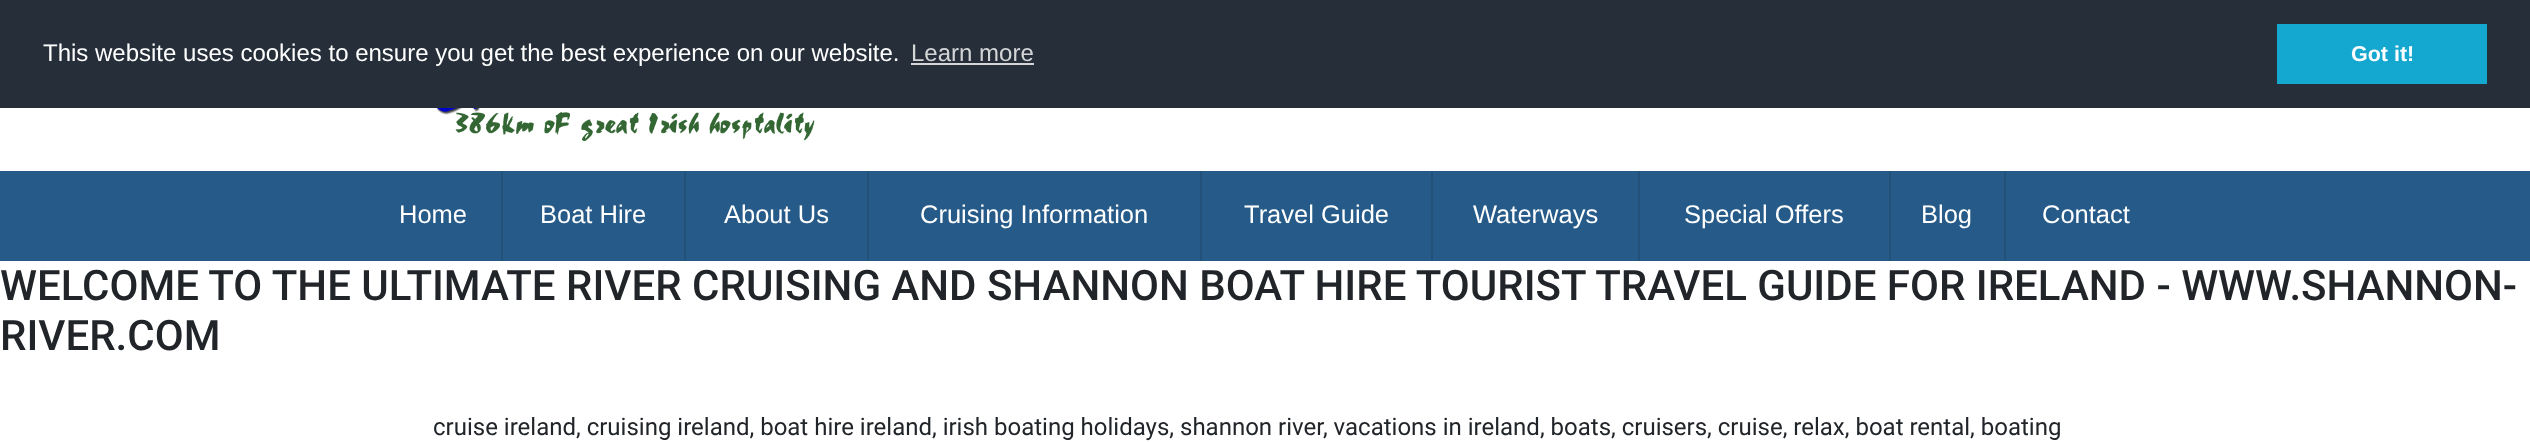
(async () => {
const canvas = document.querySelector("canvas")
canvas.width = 2530
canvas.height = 442
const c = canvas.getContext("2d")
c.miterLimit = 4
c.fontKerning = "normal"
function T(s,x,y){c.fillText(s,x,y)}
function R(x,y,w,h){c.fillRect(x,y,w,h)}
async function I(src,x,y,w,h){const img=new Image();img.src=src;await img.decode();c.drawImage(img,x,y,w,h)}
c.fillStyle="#fff"
R(0,0,2530,442)
c.fillStyle="#252e39"
R(0,0,2530,108)
c.font="24px Liberation Sans"
c.fillStyle="#fff"
T("This website uses cookies to ensure you get the best experience on our website.",43,61)
c.fillStyle="#d3d5d7"
T("Learn more",911,61)
R(911,63,123,2)
c.fillStyle="#14a7d0"
R(2277,24,210,60)
c.font="bold 21.5px Liberation Sans"
c.fillStyle="#fff"
T("Got it!",2351,61)
await I("1.png",436,108,379,33)
c.fillStyle="#265a88"
R(0,171,2530,90)
c.fillStyle="#22517a"
R(501,171,2,90)
c.font="25.5px Liberation Sans"
c.fillStyle="#fff"
T("Home",399,223)
c.fillStyle="#22517a"
R(684,171,2,90)
c.fillStyle="#fff"
T("Boat Hire",540,223)
c.fillStyle="#22517a"
R(867,171,2,90)
c.fillStyle="#fff"
T("About Us",724,223)
c.fillStyle="#22517a"
R(1200,171,2,90)
c.fillStyle="#fff"
T("Cruising Information",920,223)
c.fillStyle="#22517a"
R(1431,171,2,90)
c.fillStyle="#fff"
T("Travel Guide",1244,223)
c.fillStyle="#22517a"
R(1638,171,2,90)
c.fillStyle="#fff"
T("Waterways",1473,223)
c.fillStyle="#22517a"
R(1889,171,2,90)
c.fillStyle="#fff"
T("Special Offers",1684,223)
c.fillStyle="#22517a"
R(2004,171,2,90)
c.fillStyle="#fff"
T("Blog",1921,223)
T("Contact",2042,223)
c.font="500 42px Roboto"
c.fillStyle="#212529"
T("WELCOME TO THE ULTIMATE RIVER CRUISING AND SHANNON BOAT HIRE TOURIST TRAVEL GUIDE FOR IRELAND - WWW.SHANNON-",0,300)
T("RIVER.COM",0,350)
c.font="24px Roboto"
T("cruise ireland, cruising ireland, boat hire ireland, irish boating holidays, shannon river, vacations in ireland, boats, cruisers, cruise, relax, boat rental, boating",433,435)
})()
